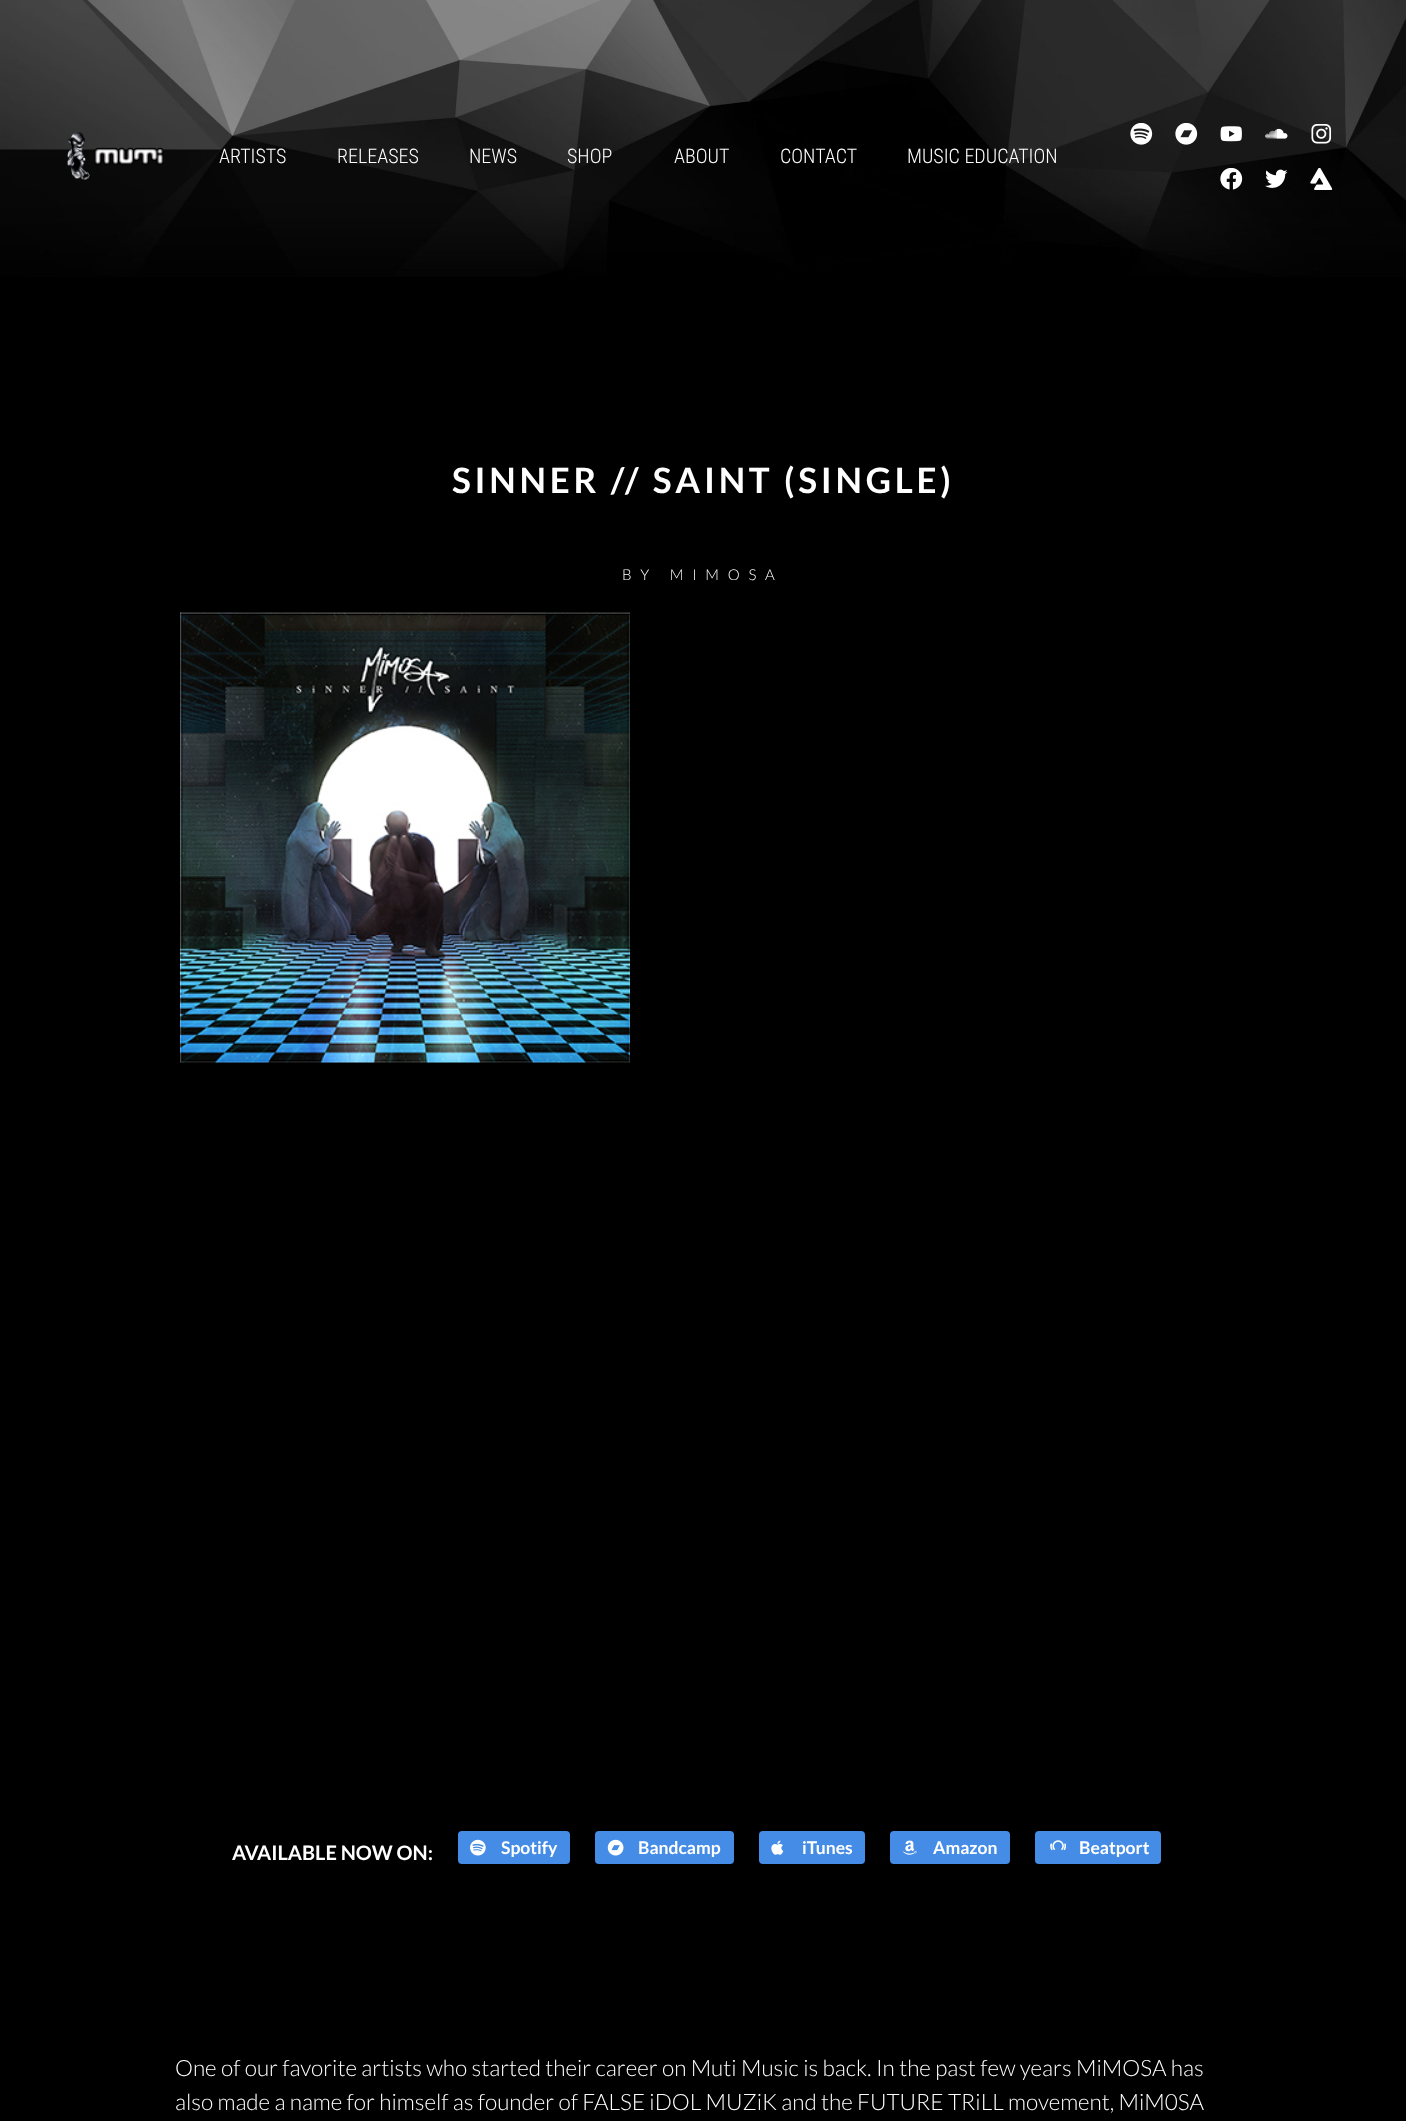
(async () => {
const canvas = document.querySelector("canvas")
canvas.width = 1406
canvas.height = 2121
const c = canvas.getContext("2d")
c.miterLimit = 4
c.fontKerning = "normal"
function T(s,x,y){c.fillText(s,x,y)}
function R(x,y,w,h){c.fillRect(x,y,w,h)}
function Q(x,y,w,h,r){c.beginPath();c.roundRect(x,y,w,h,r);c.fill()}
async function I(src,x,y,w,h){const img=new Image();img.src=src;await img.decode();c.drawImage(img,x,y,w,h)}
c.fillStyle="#000"
R(0,0,1406,2121)
await I("1.png",0,0,1406,277)
await I("2.png",67,132,97,48)
c.font="300 20px Roboto Condensed"
c.fillStyle="#fff"
T("ARTISTS",219,163)
T("RELEASES",337,163)
T("NEWS",469,163)
T("SHOP",567,163)
T("ABOUT",674,163)
T("CONTACT",780,163)
T("MUSIC EDUCATION",907,163)
await I("3.png",1130,123,23,22)
await I("4.png",1175,123,23,22)
await I("5.png",1220,126,22,16)
await I("6.png",1265,128,23,11)
await I("7.png",1311,124,21,20)
await I("8.png",1220,168,23,22)
await I("9.png",1265,169,23,19)
await I("10.png",1310,168,23,22)
c.letterSpacing="3.75px"
c.font="bold 35px Lato"
T("SINNER // SAINT (SINGLE)",452,493)
c.letterSpacing="8.75px"
c.font="300 15px Lato"
T("BY MIMOSA",622,580)
await I("11.png",180,612,450,451)
c.letterSpacing="0px"
c.font="bold 20px Lato"
T("AVAILABLE NOW ON:",232,1860)
c.fillStyle="#458ce6"
Q(458,1831,112,33,4)
await I("12.png",470,1839,16,17)
c.font="bold 17.5px Lato"
c.fillStyle="#fff"
T("Spotify",501,1854)
c.fillStyle="#458ce6"
Q(595,1831,139,33,4)
await I("13.png",607,1839,17,17)
c.fillStyle="#fff"
T("Bandcamp",638,1854)
c.fillStyle="#458ce6"
Q(759,1831,106,33,4)
await I("14.png",771,1840,13,15)
c.fillStyle="#fff"
T("iTunes",802,1854)
c.fillStyle="#458ce6"
Q(890,1831,120,33,4)
await I("15.png",902,1840,15,15)
c.fillStyle="#fff"
T("Amazon",933,1854)
c.fillStyle="#458ce6"
Q(1035,1831,126,33,4)
await I("16.png",1050,1840,16,11)
c.fillStyle="#fff"
T("Beatport",1079,1854)
c.font="300 22.5px Lato"
T("One of our favorite artists who started their career on Muti Music is back. In the past few years MiMOSA has",175,2076)
T("also made a name for himself as founder of FALSE iDOL MUZiK and the FUTURE TRiLL movement, MiM0SA",175,2110)
})()
